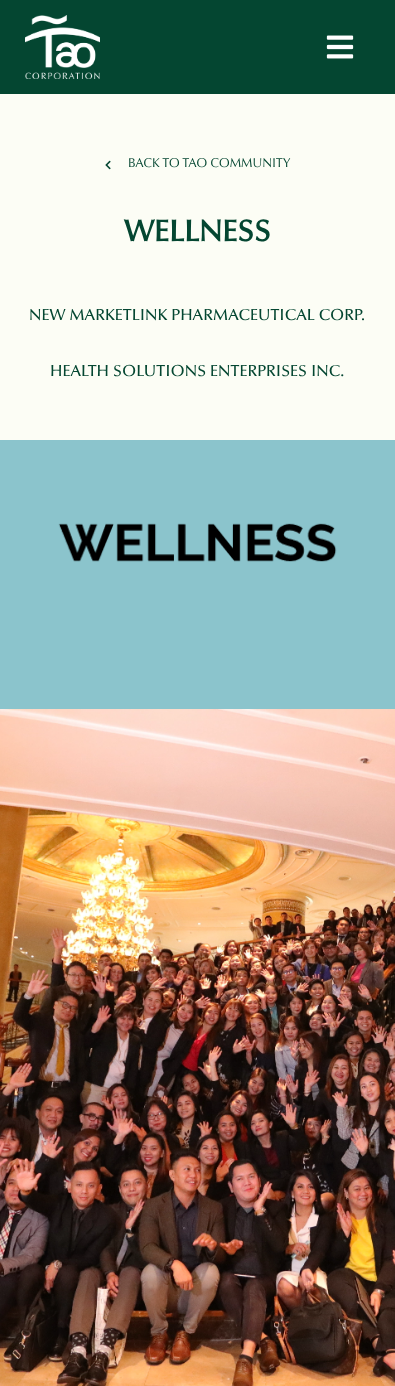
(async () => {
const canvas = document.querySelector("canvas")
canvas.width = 395
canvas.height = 1386
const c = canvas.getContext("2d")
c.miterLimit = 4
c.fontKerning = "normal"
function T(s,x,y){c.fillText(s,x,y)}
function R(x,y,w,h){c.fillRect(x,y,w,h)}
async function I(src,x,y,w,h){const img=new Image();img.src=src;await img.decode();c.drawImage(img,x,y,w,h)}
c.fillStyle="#fcfdf5"
R(0,0,395,1386)
c.fillStyle="#044631"
R(0,0,395,94)
await I("1.png",25,15,75,64)
await I("2.png",326,35,28,24)
await I("3.png",105,160,6,10)
c.font="12.75px Optima"
T("BACK TO TAO COMMUNITY",128,167)
c.font="bold 30px Optima"
T("WELLNESS",124,241)
c.font="500 16px Optima"
T("NEW MARKETLINK PHARMACEUTICAL CORP.",29,320)
T("HEALTH SOLUTIONS ENTERPRISES INC.",50,376)
c.fillStyle="#8bc4cc"
R(0,440,395,269)
await I("4.png",58,523,279,39)
await I("5.png",0,709,395,677)
})()
